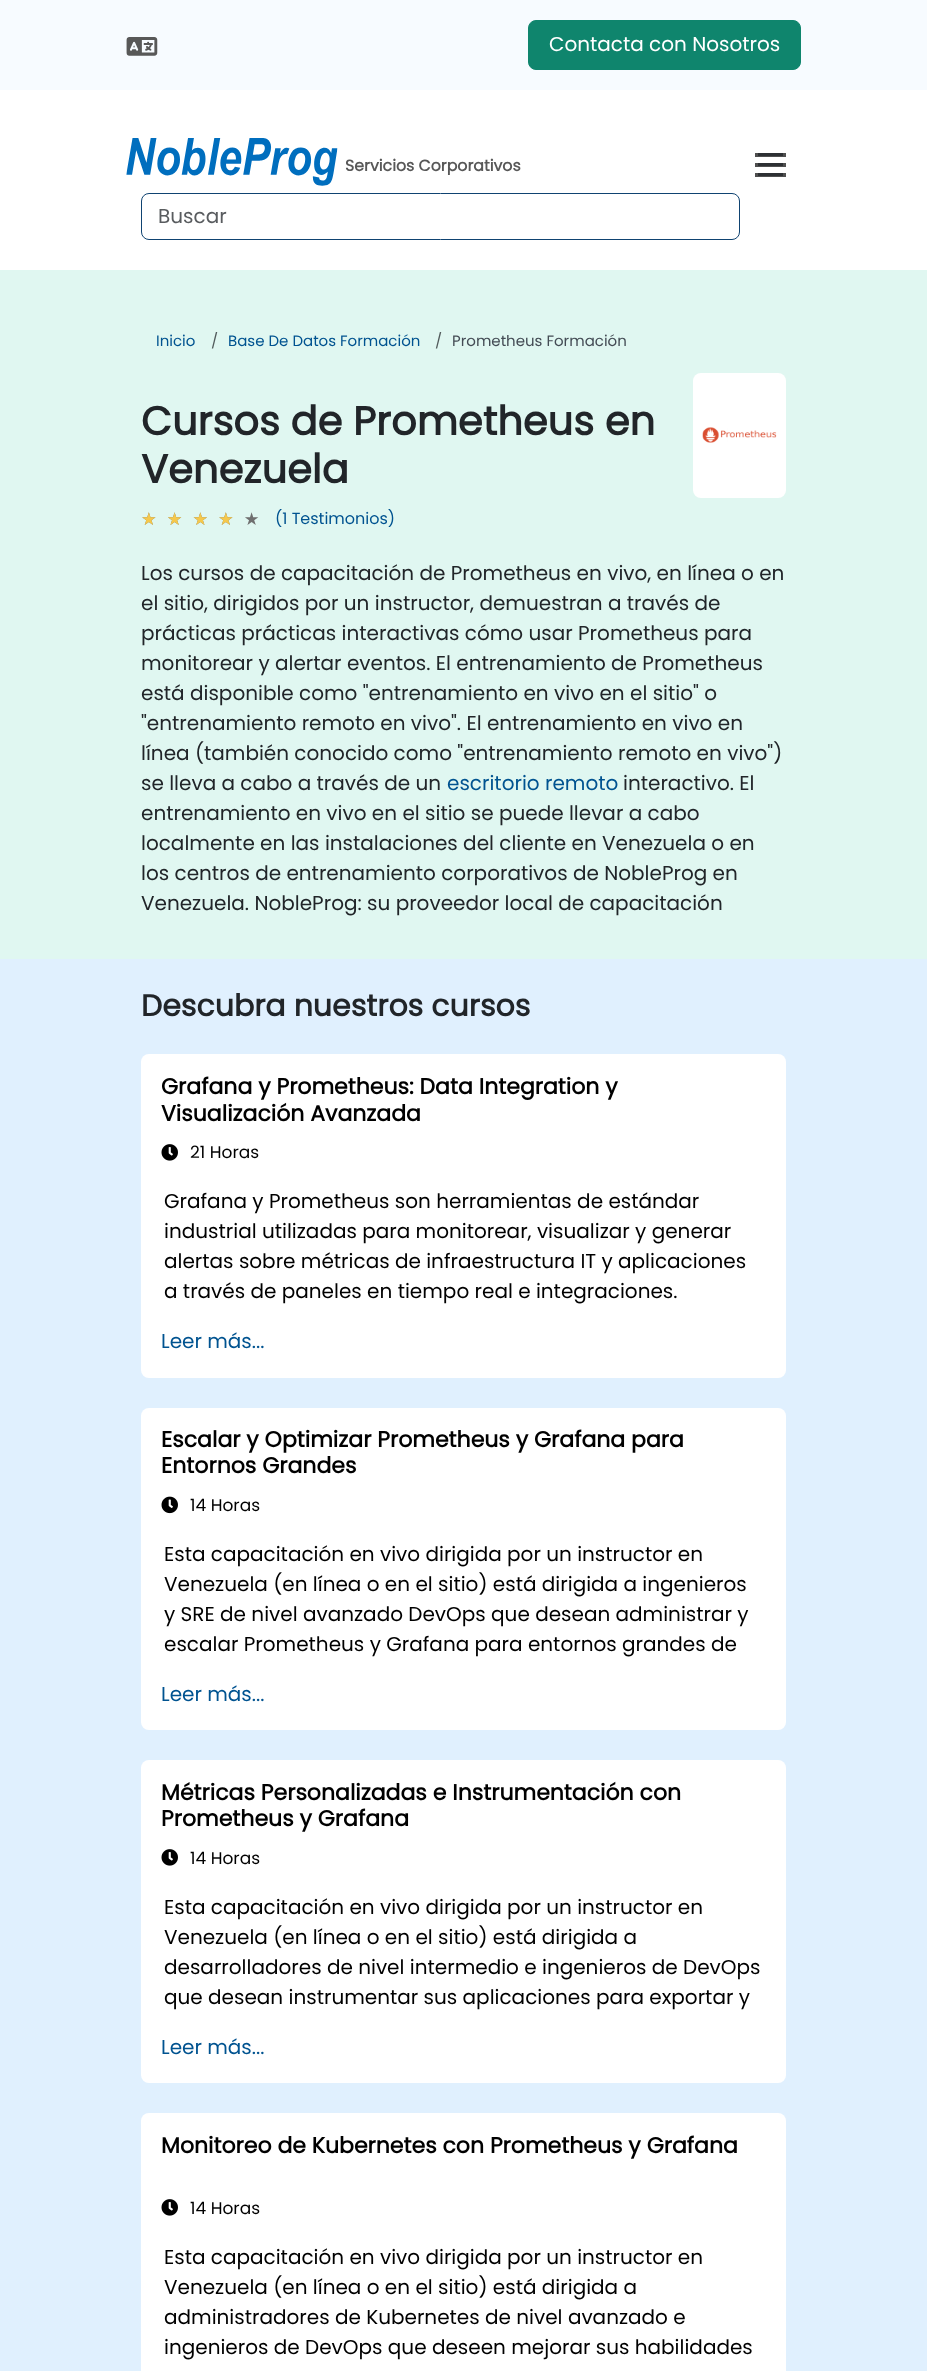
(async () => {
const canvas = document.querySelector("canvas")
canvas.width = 927
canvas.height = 2371
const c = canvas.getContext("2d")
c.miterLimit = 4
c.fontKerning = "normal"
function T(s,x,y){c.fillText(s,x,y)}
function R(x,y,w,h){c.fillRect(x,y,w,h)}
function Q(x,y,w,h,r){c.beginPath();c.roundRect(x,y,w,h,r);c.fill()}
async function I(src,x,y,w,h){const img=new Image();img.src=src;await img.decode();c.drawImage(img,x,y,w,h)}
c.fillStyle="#fff"
R(0,0,927,2371)
c.fillStyle="#f7fbff"
R(0,0,927,90)
await I("1.png",126,37,32,19)
c.fillStyle="#0f856d"
c.beginPath()
c.roundRect(528.5,20.5,272,49,7.5)
c.fill()
c.strokeStyle="#0f856d"
c.stroke()
c.font="20px Poppins"
c.fillStyle="#fff"
T("Contacta con Nosotros",549,51)
await I("2.png",126,138,212,48)
c.font="bold 15.75px Poppins"
c.fillStyle="#585858"
T("Servicios Corporativos",345,171)
c.beginPath()
c.roundRect(141.5,193.5,598,46,7.5)
c.strokeStyle="#0f4371"
c.stroke()
c.font="20px Poppins"
c.fillStyle="#595c5f"
T("Buscar",158,223)
c.fillStyle="#4f4f4f"
R(755,153,31,4)
c.fillStyle="#2d3033"
R(758,153,25,3)
c.fillStyle="#4f4f4f"
R(755,163,31,4)
c.fillStyle="#2d3033"
R(758,163,25,3)
c.fillStyle="#4f4f4f"
R(755,173,31,4)
c.fillStyle="#2d3033"
R(758,173,25,3)
c.fillStyle="#e0f7f1"
R(0,270,927,689)
c.font="15px Poppins"
c.fillStyle="#005390"
T("Inicio",156,346)
c.fillStyle="#515a5b"
T("/",211,346)
c.fillStyle="#005390"
T("Base De Datos Formación",228,346)
c.fillStyle="#515a5b"
T("/",435,346)
c.fillStyle="#444c55"
T("Prometheus Formación",452,346)
c.font="bold 40px Poppins"
c.fillStyle="#212529"
T("Cursos de Prometheus en",141,435)
T("Venezuela",141,483)
c.fillStyle="#fff"
Q(693,373,93,125,8)
await I("3.png",702,427,75,16)
c.letterSpacing="10px"
c.font="17.5px DejaVu Sans"
c.fillStyle="#6f6f6f"
T("★★★★★",141,525)
c.fillStyle="#f5c84c"
T("★★★★",141,525)
c.letterSpacing="0px"
c.font="16px Poppins"
c.fillStyle="#005390"
T("(1 Testimonios)",275,524)
c.font="20px Poppins"
c.fillStyle="#212529"
T("Los cursos de capacitación de Prometheus en vivo, en línea o en",141,580)
T("el sitio, dirigidos por un instructor, demuestran a través de",141,610)
T("prácticas prácticas interactivas cómo usar Prometheus para",141,640)
T("monitorear y alertar eventos. El entrenamiento de Prometheus",141,670)
T("está disponible como \"entrenamiento en vivo en el sitio\" o",141,700)
T("\"entrenamiento remoto en vivo\". El entrenamiento en vivo en",141,730)
T("línea (también conocido como \"entrenamiento remoto en vivo\")",141,760)
T("se lleva a cabo a través de un",141,790)
c.fillStyle="#005390"
T("escritorio remoto",447,790)
c.fillStyle="#212529"
T("interactivo. El",623,790)
T("entrenamiento en vivo en el sitio se puede llevar a cabo",141,820)
T("localmente en las instalaciones del cliente en Venezuela o en",141,850)
T("los centros de entrenamiento corporativos de NobleProg en",141,880)
T("Venezuela. NobleProg: su proveedor local de capacitación",141,910)
c.fillStyle="#e0f0fe"
R(0,959,927,1412)
c.font="bold 30px Poppins"
c.fillStyle="#212529"
T("Descubra nuestros cursos",141,1016)
c.fillStyle="#fff"
Q(141,1054,645,324,8)
c.font="bold 22px Poppins"
c.fillStyle="#000"
T("Grafana y Prometheus: Data Integration y",161,1094)
T("Visualización Avanzada",161,1121)
await I("4.png",161,1144,17,17)
c.font="17px Poppins"
T("21 Horas",190,1158)
c.font="20px Poppins"
T("Grafana y Prometheus son herramientas de estándar",164,1208)
T("industrial utilizadas para monitorear, visualizar y generar",164,1238)
T("alertas sobre métricas de infraestructura IT y aplicaciones",164,1268)
T("a través de paneles en tiempo real e integraciones.",164,1298)
c.fillStyle="#005390"
T("Leer más...",161,1348)
c.fillStyle="#fff"
Q(141,1408,645,322,8)
c.font="bold 22px Poppins"
c.fillStyle="#000"
T("Escalar y Optimizar Prometheus y Grafana para",161,1447)
T("Entornos Grandes",161,1473)
await I("5.png",161,1496,17,18)
c.font="17px Poppins"
T("14 Horas",190,1511)
c.font="20px Poppins"
T("Esta capacitación en vivo dirigida por un instructor en",164,1561)
T("Venezuela (en línea o en el sitio) está dirigida a ingenieros",164,1591)
T("y SRE de nivel avanzado DevOps que desean administrar y",164,1621)
T("escalar Prometheus y Grafana para entornos grandes de",164,1651)
c.fillStyle="#005390"
T("Leer más...",161,1701)
c.fillStyle="#fff"
Q(141,1760,645,323,8)
c.font="bold 22px Poppins"
c.fillStyle="#000"
T("Métricas Personalizadas e Instrumentación con",161,1800)
T("Prometheus y Grafana",161,1826)
await I("4.png",161,1849,17,17)
c.font="17px Poppins"
T("14 Horas",190,1864)
c.font="20px Poppins"
T("Esta capacitación en vivo dirigida por un instructor en",164,1914)
T("Venezuela (en línea o en el sitio) está dirigida a",164,1944)
T("desarrolladores de nivel intermedio e ingenieros de DevOps",164,1974)
T("que desean instrumentar sus aplicaciones para exportar y",164,2004)
c.fillStyle="#005390"
T("Leer más...",161,2054)
c.fillStyle="#fff"
Q(141,2113,645,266,8)
c.font="bold 22px Poppins"
c.fillStyle="#000"
T("Monitoreo de Kubernetes con Prometheus y Grafana",161,2153)
await I("4.png",161,2199,17,17)
c.font="17px Poppins"
T("14 Horas",190,2214)
c.font="20px Poppins"
T("Esta capacitación en vivo dirigida por un instructor en",164,2264)
T("Venezuela (en línea o en el sitio) está dirigida a",164,2294)
T("administradores de Kubernetes de nivel avanzado e",164,2324)
T("ingenieros de DevOps que deseen mejorar sus habilidades",164,2354)
})()
